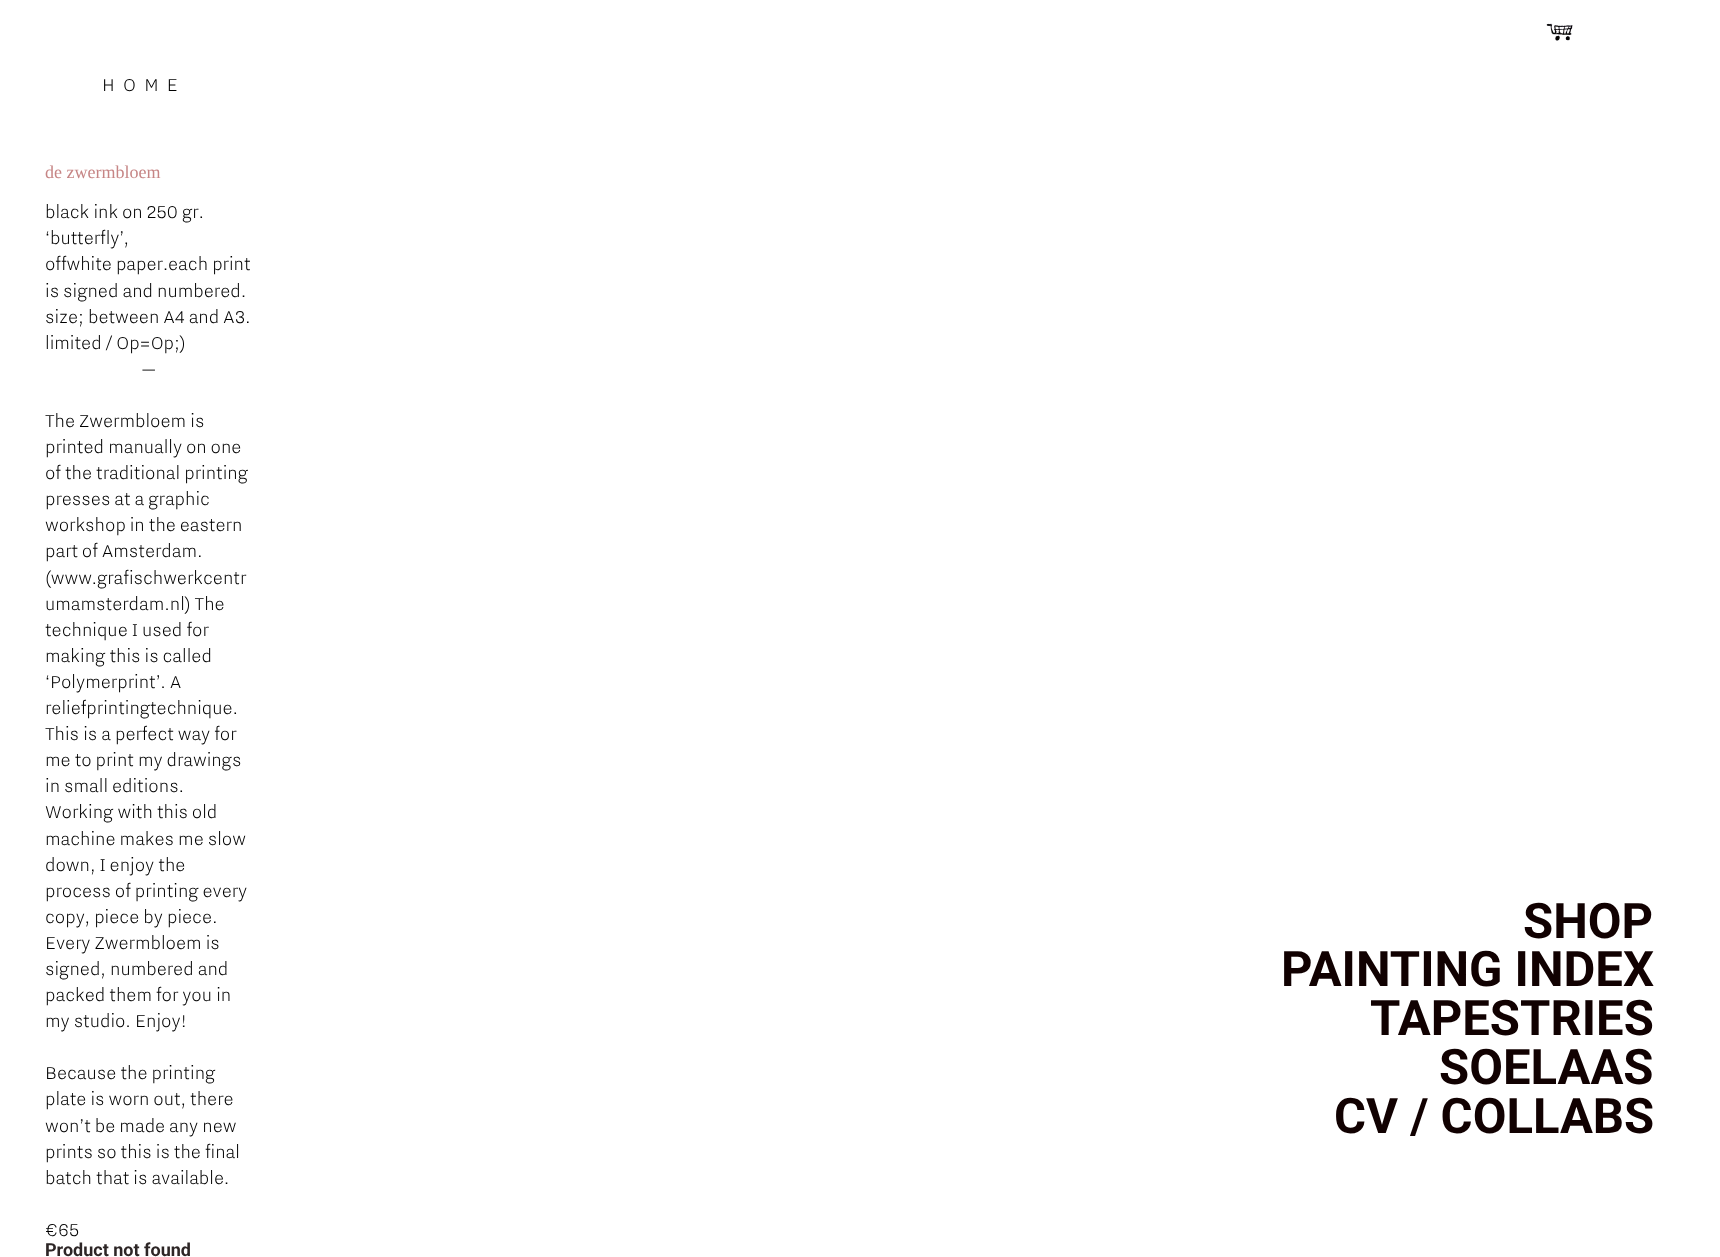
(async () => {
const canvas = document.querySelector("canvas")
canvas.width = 1720
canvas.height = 1257
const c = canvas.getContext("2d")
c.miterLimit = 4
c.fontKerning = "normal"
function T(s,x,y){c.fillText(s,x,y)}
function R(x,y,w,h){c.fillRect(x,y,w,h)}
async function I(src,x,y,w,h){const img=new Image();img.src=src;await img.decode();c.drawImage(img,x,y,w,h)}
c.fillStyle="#fff"
R(0,0,1720,1257)
await I("1.png",1546,23,27,18)
c.font="300 21.75px 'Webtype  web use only'"
c.fillStyle="#000"
T("H  O  M  E",102,91)
c.font="18px Liberation Serif"
c.fillStyle="#c68585"
T("de zwermbloem",45,178)
c.font="300 21.75px 'Webtype  web use only'"
c.fillStyle="#000"
T("black ink on 250 gr.",45,218)
T("‘butterfly’,",45,244)
T("offwhite paper.each print",45,270)
T("is signed and numbered.",45,297)
T("size; between A4 and A3.",45,323)
T("limited / Op=Op;)",45,349)
T("—",141,375)
T("The Zwermbloem is",45,427)
T("printed manually on one",45,453)
T("of the traditional printing",45,479)
T("presses at a graphic",45,505)
T("workshop in the eastern",45,531)
T("part of Amsterdam.",45,557)
T("(www.grafischwerkcentr",45,584)
T("umamsterdam.nl) The",45,610)
T("technique I used for",45,636)
T("making this is called",45,662)
T("‘Polymerprint’. A",45,688)
T("reliefprintingtechnique.",45,714)
T("This is a perfect way for",45,740)
T("me to print my drawings",45,766)
T("in small editions.",45,792)
T("Working with this old",45,818)
T("machine makes me slow",45,845)
T("down, I enjoy the",45,871)
T("process of printing every",45,897)
T("copy, piece by piece.",45,923)
T("Every Zwermbloem is",45,949)
T("signed, numbered and",45,975)
T("packed them for you in",45,1001)
T("my studio. Enjoy!",45,1027)
T("Because the printing",45,1079)
T("plate is worn out, there",45,1105)
T("won’t be made any new",45,1132)
T("prints so this is the final",45,1158)
T("batch that is available.",45,1184)
T("€65",45,1236)
c.font="bold 18px Roboto"
c.fillStyle="#2d2626"
T("Product not found",45,1256)
c.font="bold 49px Roboto"
c.fillStyle="#110101"
T("SHOP",1523,938)
T("PAINTING INDEX",1281,986)
T("TAPESTRIES",1370,1035)
T("SOELAAS",1439,1084)
T("CV / COLLABS",1334,1133)
})()
